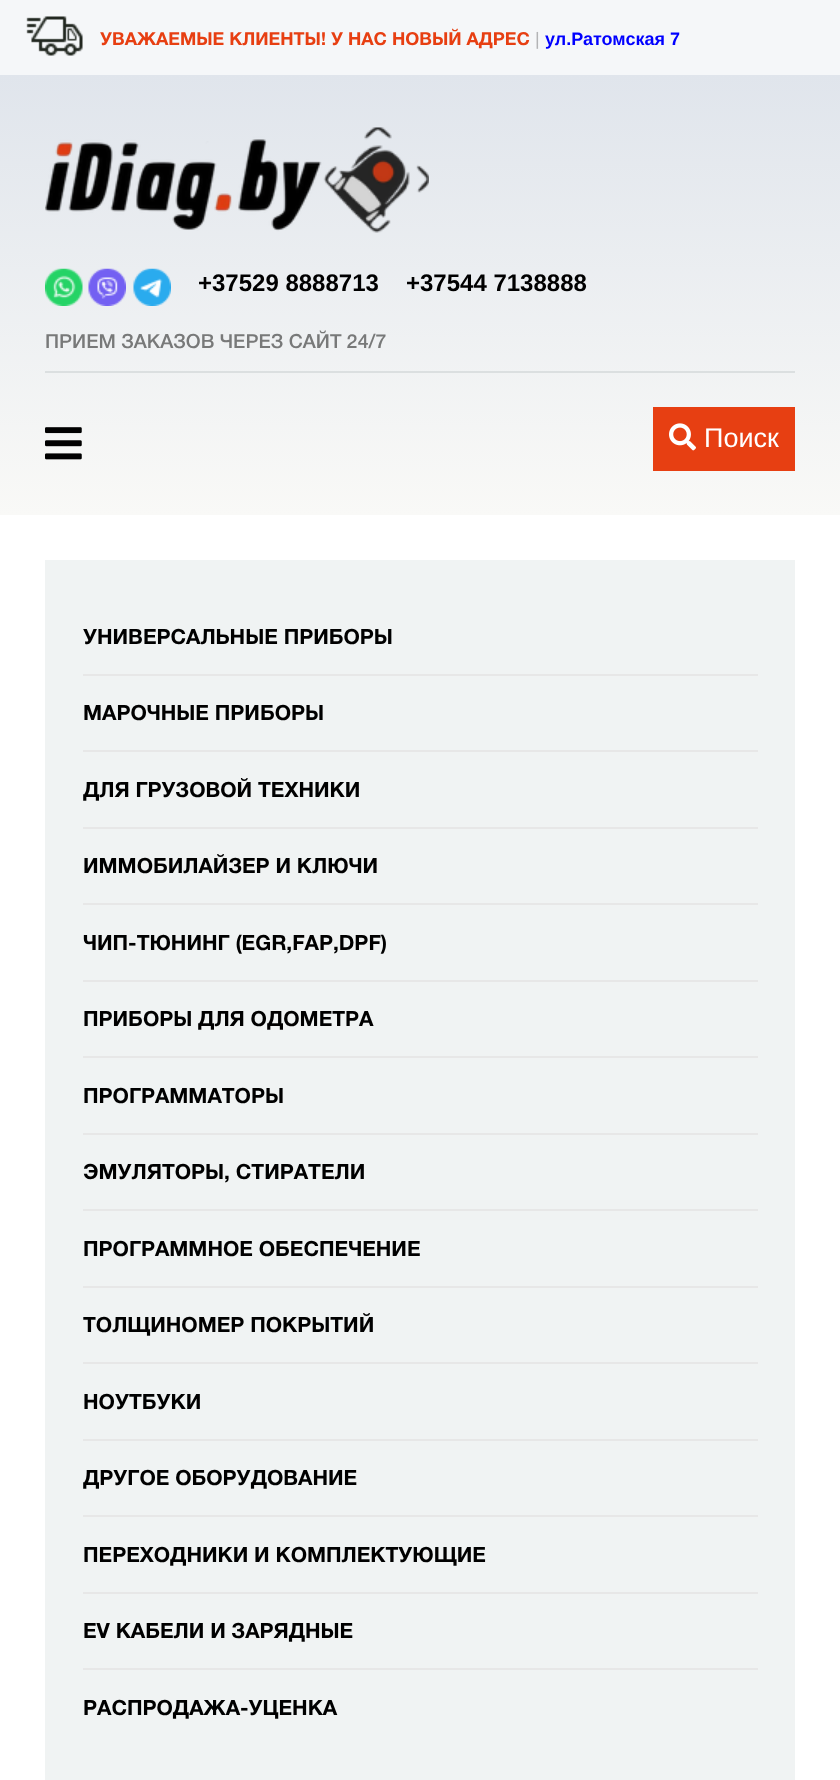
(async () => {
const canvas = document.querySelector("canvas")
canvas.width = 840
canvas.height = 1780
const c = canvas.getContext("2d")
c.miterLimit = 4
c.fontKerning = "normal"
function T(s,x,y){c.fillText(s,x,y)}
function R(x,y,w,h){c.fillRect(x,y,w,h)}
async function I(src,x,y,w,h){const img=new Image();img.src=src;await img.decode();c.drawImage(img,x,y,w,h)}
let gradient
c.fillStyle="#fff"
R(0,0,840,1780)
c.fillStyle="#f5f7f9"
R(0,0,840,75)
await I("1.png",26,16,57,40)
c.font="bold 18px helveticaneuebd"
c.fillStyle="#e73f12"
T("УВАЖАЕМЫЕ КЛИЕНТЫ! У НАС НОВЫЙ АДРЕС",100,45)
c.font="18px Liberation Sans"
c.fillStyle="#b3b4b6"
T("|",535,45)
c.font="bold 18px Liberation Sans"
c.fillStyle="#00f"
T("ул.Ратомская 7",545,45)
gradient = c.createLinearGradient(420,75,420,515)
gradient.addColorStop(0,"#e0e5ec")
gradient.addColorStop(1,"#f9f9f7")
c.fillStyle = gradient
R(0,75,840,440)
await I("2.png",45,127,384,106)
c.fillStyle="#dbdfe0"
R(45,371,750,2)
await I("3.png",45,268,38,38)
await I("4.png",88,268,38,38)
await I("5.png",133,268,38,38)
c.font="bold 24px Liberation Sans"
c.fillStyle="#000"
T("+37529 8888713",198,291)
T("+37544 7138888",406,291)
c.font="500 19.5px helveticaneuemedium"
c.fillStyle="#787979"
T("ПРИЕМ ЗАКАЗОВ ЧЕРЕЗ САЙТ 24/7",45,348)
await I("6.png",45,427,37,33)
c.fillStyle="#e73f12"
R(653,407,142,64)
await I("7.png",669,423,27,28)
c.font="27px Liberation Sans"
c.fillStyle="#fff"
T("Поиск",704,447)
c.fillStyle="#f0f3f3"
R(45,560,750,1220)
c.font="bold 21px helveticaneuebd"
c.fillStyle="#000"
T("УНИВЕРСАЛЬНЫЕ ПРИБОРЫ",83,644)
c.fillStyle="#e7e7e7"
R(83,674,675,2)
c.fillStyle="#000"
T("МАРОЧНЫЕ ПРИБОРЫ",83,720)
c.fillStyle="#e7e7e7"
R(83,750,675,2)
c.fillStyle="#000"
T("ДЛЯ ГРУЗОВОЙ ТЕХНИКИ",83,797)
c.fillStyle="#e7e7e7"
R(83,827,675,2)
c.fillStyle="#000"
T("ИММОБИЛАЙЗЕР И КЛЮЧИ",83,873)
c.fillStyle="#e7e7e7"
R(83,903,675,2)
c.fillStyle="#000"
T("ЧИП-ТЮНИНГ (EGR,FAP,DPF)",83,950)
c.fillStyle="#e7e7e7"
R(83,980,675,2)
c.fillStyle="#000"
T("ПРИБОРЫ ДЛЯ ОДОМЕТРА",83,1026)
c.fillStyle="#e7e7e7"
R(83,1056,675,2)
c.fillStyle="#000"
T("ПРОГРАММАТОРЫ",83,1103)
c.fillStyle="#e7e7e7"
R(83,1133,675,2)
c.fillStyle="#000"
T("ЭМУЛЯТОРЫ, СТИРАТЕЛИ",83,1179)
c.fillStyle="#e7e7e7"
R(83,1209,675,2)
c.fillStyle="#000"
T("ПРОГРАММНОЕ ОБЕСПЕЧЕНИЕ",83,1256)
c.fillStyle="#e7e7e7"
R(83,1286,675,2)
c.fillStyle="#000"
T("ТОЛЩИНОМЕР ПОКРЫТИЙ",83,1332)
c.fillStyle="#e7e7e7"
R(83,1362,675,2)
c.fillStyle="#000"
T("НОУТБУКИ",83,1409)
c.fillStyle="#e7e7e7"
R(83,1439,675,2)
c.fillStyle="#000"
T("ДРУГОЕ ОБОРУДОВАНИЕ",83,1485)
c.fillStyle="#e7e7e7"
R(83,1515,675,2)
c.fillStyle="#000"
T("ПЕРЕХОДНИКИ И КОМПЛЕКТУЮЩИЕ",83,1562)
c.fillStyle="#e7e7e7"
R(83,1592,675,2)
c.fillStyle="#000"
T("EV КАБЕЛИ И ЗАРЯДНЫЕ",83,1638)
c.fillStyle="#e7e7e7"
R(83,1668,675,2)
c.fillStyle="#000"
T("РАСПРОДАЖА-УЦЕНКА",83,1715)
})()
